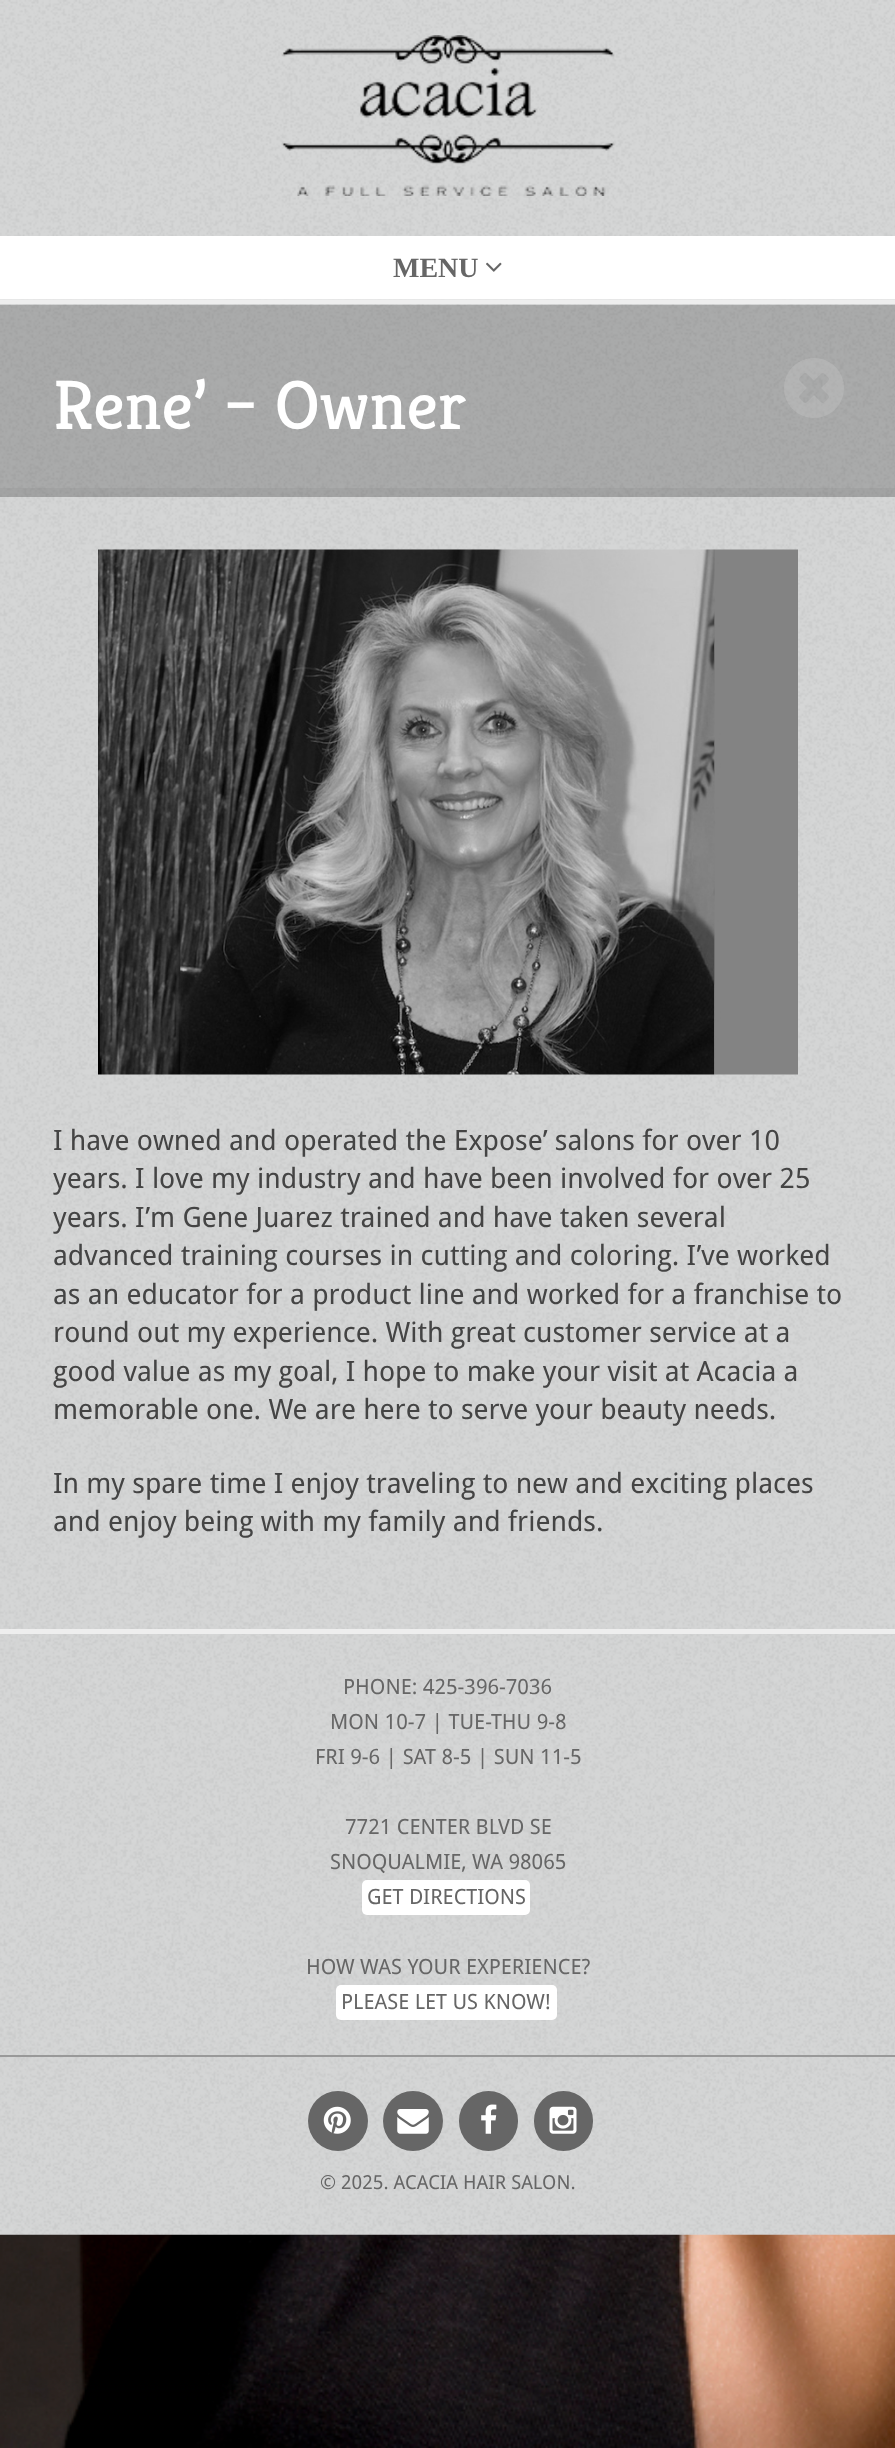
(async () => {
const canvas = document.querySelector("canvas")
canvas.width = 895
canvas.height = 2448
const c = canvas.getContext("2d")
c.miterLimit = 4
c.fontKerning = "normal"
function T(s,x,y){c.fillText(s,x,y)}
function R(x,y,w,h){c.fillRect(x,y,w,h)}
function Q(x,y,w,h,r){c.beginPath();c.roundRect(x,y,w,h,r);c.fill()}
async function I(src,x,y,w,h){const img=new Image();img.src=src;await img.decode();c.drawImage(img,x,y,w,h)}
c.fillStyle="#fff"
R(0,0,895,2448)
c.fillStyle="#eee"
R(0,299,895,5)
await I("1.png",0,0,895,300)
await I("2.png",281,35,334,161)
c.fillStyle="#fff"
R(0,236,895,63)
c.font="bold 28px Liberation Serif"
c.fillStyle="#666"
T("MENU",393,277)
await I("3.png",486,262,16,10)
await I("4.png",0,304,895,1325)
c.fillStyle="#00000033"
R(0,305,895,192)
c.fillStyle="#0000000a"
R(0,488,895,9)
c.font="70px Kreon"
c.fillStyle="#fff"
T("Rene’ – Owner",53,429)
await I("5.png",784,358,60,60)
await I("6.png",98,549,700,526)
c.font="28px Droid Sans"
c.fillStyle="#444"
T("I have owned and operated the Expose’ salons for over 10",53,1150)
T("years. I love my industry and have been involved for over 25",53,1188)
T("years. I’m Gene Juarez trained and have taken several",53,1227)
T("advanced training courses in cutting and coloring. I’ve worked",53,1265)
T("as an educator for a product line and worked for a franchise to",53,1304)
T("round out my experience. With great customer service at a",53,1342)
T("good value as my goal, I hope to make your visit at Acacia a",53,1381)
T("memorable one. We are here to serve your beauty needs.",53,1419)
T("In my spare time I enjoy traveling to new and exciting places",53,1493)
T("and enjoy being with my family and friends.",53,1531)
await I("12.png",0,2234,895,214)
await I("7.png",0,1634,895,601)
c.fillStyle="#eee"
R(0,1629,895,5)
c.fillStyle="#999"
R(0,2055,895,2)
c.font="21px Droid Sans"
c.fillStyle="#666"
T("PHONE: 425-396-7036",343,1694)
T("MON 10-7 | TUE-THU 9-8",330,1729)
T("FRI 9-6 | SAT 8-5 | SUN 11-5",315,1764)
T("7721 CENTER BLVD SE",345,1834)
T("SNOQUALMIE, WA 98065",330,1869)
c.fillStyle="#fff"
Q(362,1880,168,35,5)
c.fillStyle="#666"
T("GET DIRECTIONS",367,1904)
T("HOW WAS YOUR EXPERIENCE?",306,1974)
c.fillStyle="#fff"
Q(336,1985,221,35,5)
c.fillStyle="#666"
T("PLEASE LET US KNOW!",341,2009)
c.beginPath()
c.arc(338,2121,30,0,7)
c.fill()
await I("8.png",323,2106,28,28)
c.beginPath()
c.arc(413,2121,30,0,7)
c.fill()
await I("9.png",397,2109,32,25)
Q(459,2091,59,60,29.5)
await I("10.png",481,2104,16,30)
Q(534,2091,59,60,29.5)
await I("11.png",549,2106,28,28)
c.font="19.25px Droid Sans"
T("© 2025. ACACIA HAIR SALON.",320,2189)
})()
